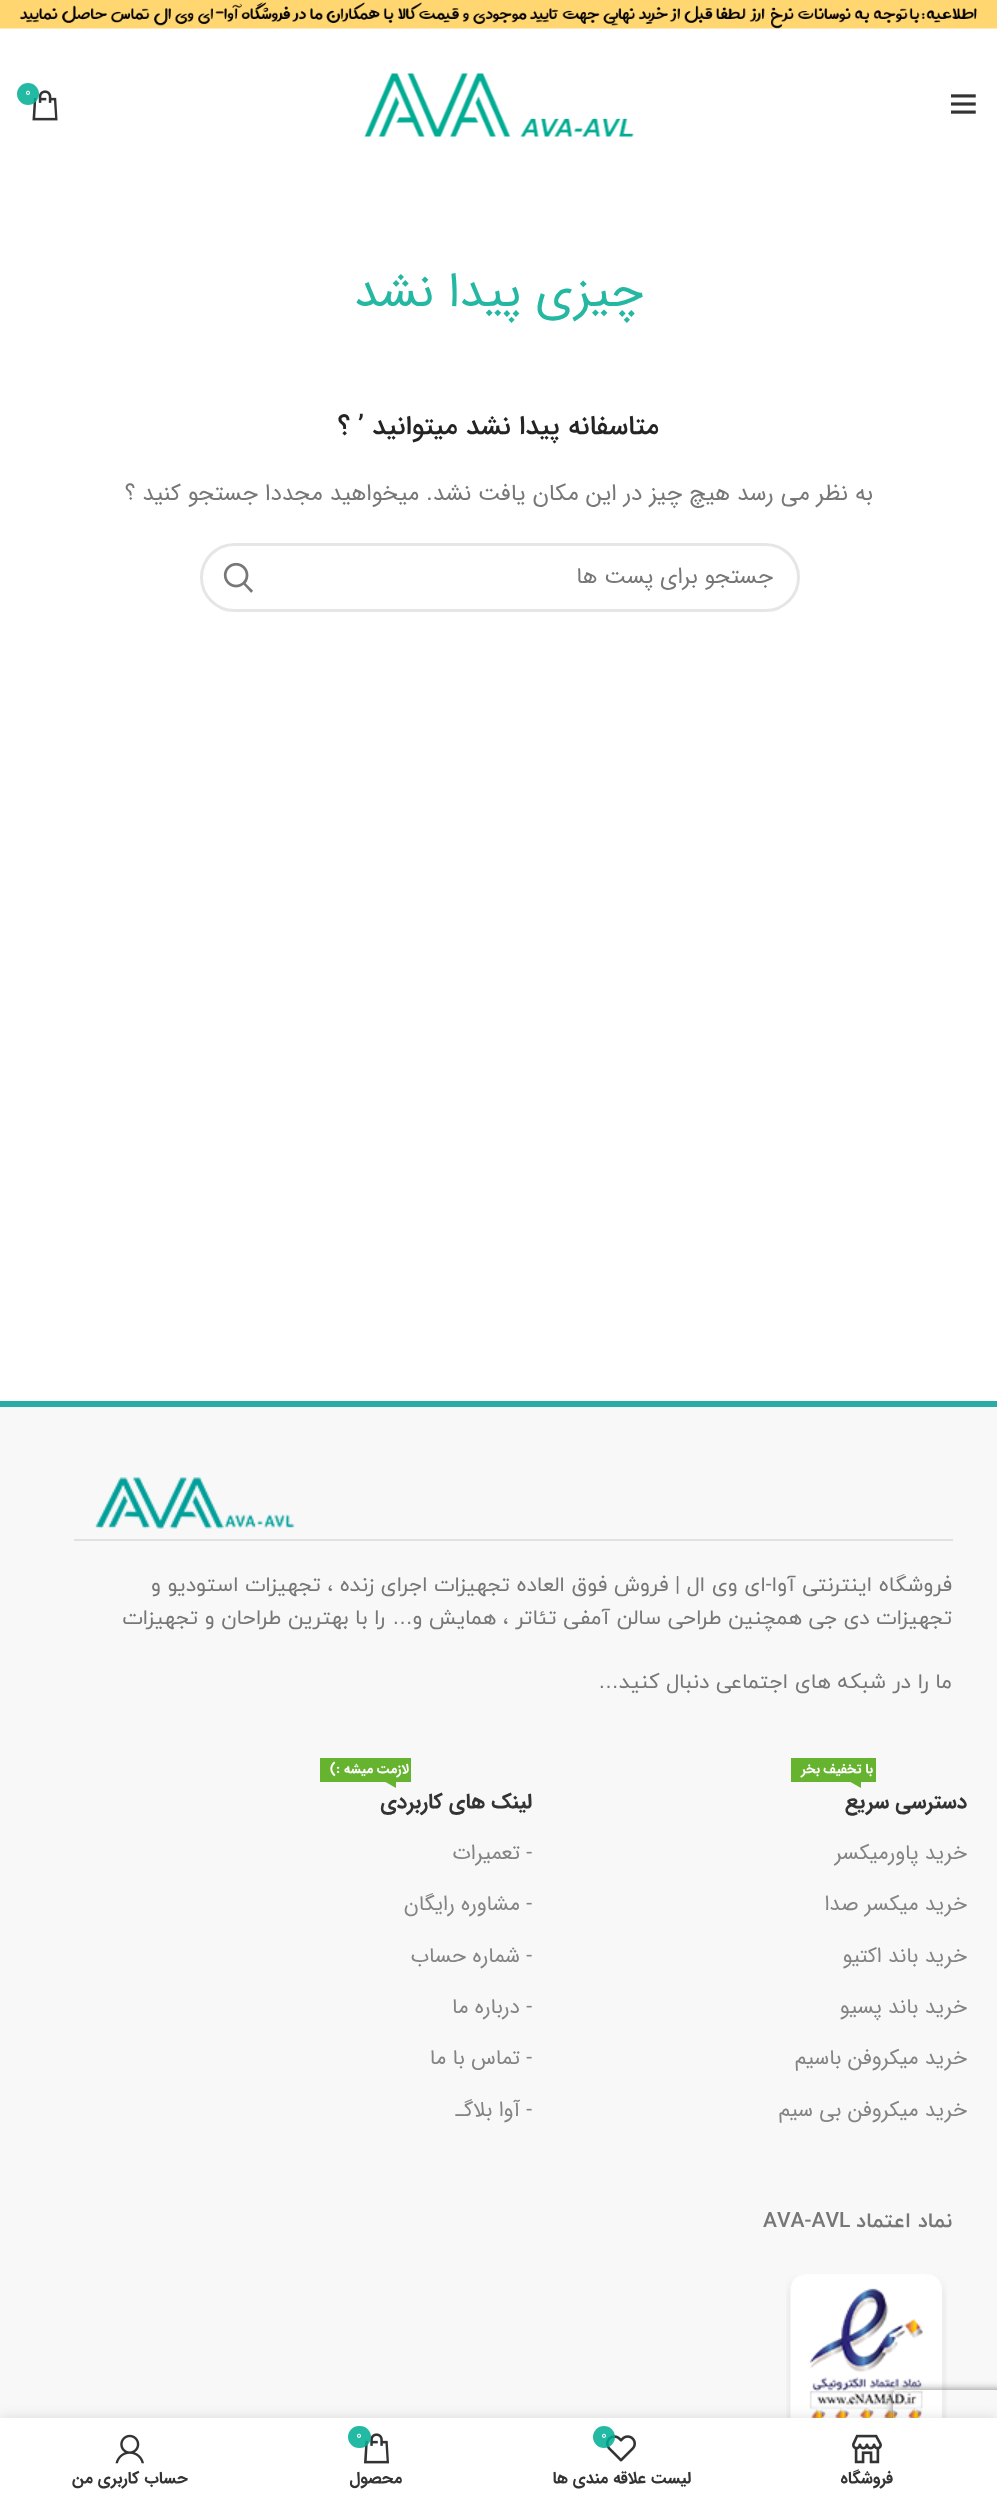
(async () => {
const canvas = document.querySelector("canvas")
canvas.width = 997
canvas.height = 2500
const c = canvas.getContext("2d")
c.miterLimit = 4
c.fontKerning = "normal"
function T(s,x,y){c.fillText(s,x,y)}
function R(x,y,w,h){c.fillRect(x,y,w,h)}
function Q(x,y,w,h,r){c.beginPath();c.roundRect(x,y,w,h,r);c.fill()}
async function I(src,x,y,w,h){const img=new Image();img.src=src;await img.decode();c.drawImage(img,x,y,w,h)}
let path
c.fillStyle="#fff"
R(0,0,997,2500)
await I("1.png",0,0,997,29)
await I("2.png",364,73,270,64)
await I("3.png",32,90,26,31)
c.fillStyle="#00ad94db"
c.beginPath()
c.arc(28,94,11,0,7)
c.fill()
c.font="13.5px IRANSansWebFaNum"
c.fillStyle="#fff"
T("0",25,96)
await I("4.png",951,94,25,20)
c.direction="rtl"
c.font="48px IRANSansWebFaNum"
c.fillStyle="#24b8a3"
T("چیزی پیدا نشد",643,306)
c.font="500 27px IRANSansWebFaNum"
c.fillStyle="#242424"
T("متاسفانه پیدا نشد میتوانید ’ ؟",659,434)
c.font="23.1px IRANSansWebFaNum"
c.fillStyle="#777"
T("به نظر می رسد هیچ چیز در این مکان یافت نشد. میخواهید مجددا جستجو کنید ؟",873,500)
c.beginPath()
c.roundRect(201.5,544.5,597,66,33)
c.strokeStyle="#e6e6e6"
c.lineWidth=3
c.stroke()
c.font="22.5px IRANSansWebFaNum"
T("جستجو برای پست ها",773,583)
await I("5.png",223,562,30,31)
c.fillStyle="#29aba6"
R(0,1401,997,6)
c.fillStyle="#f8f8f8"
R(0,1407,997,1011)
c.fillStyle="#e1e1e1"
R(74,1539,879,2)
await I("6.png",95,1477,200,52)
c.font="21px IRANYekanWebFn"
c.fillStyle="#777"
T("فروشگاه اینترنتی آوا-ای وی ال | فروش فوق العاده تجهیزات اجرای زنده ، تجهیزات استودیو و",952,1591)
T("تجهیزات دی جی همچنین طراحی سالن آمفی تئاتر ، همایش و",952,1624)
c.font="21px Liberation Sans"
T("…",413,1624)
c.font="21px IRANYekanWebFn"
T("را با بهترین طراحان و تجهیزات",385,1624)
T("ما را در شبکه های اجتماعی دنبال کنید",952,1688)
c.font="21px Liberation Sans"
T("…",619,1688)
c.fillStyle="#65b32e"
R(791,1758,85,24)
c.letterSpacing="0.5px"
c.wordSpacing="-1px"
c.font="bold 13.5px IRANSansWebFaNum"
c.fillStyle="#fff"
T("با تخفیف بخر",873,1773)
c.fillStyle="#65b32e"
path = new Path2D("M850.5 1782h10.5v6z")
c.fill(path)
c.letterSpacing="0px"
c.wordSpacing="0px"
c.font="bold 21px IRANSansWebFaNum"
c.fillStyle="#333"
T("دسترسی سریع",967,1808)
c.font="21px IRANSansWebFaNum"
c.fillStyle="#848484"
T("خرید پاورمیکسر",967,1859)
T("خرید میکسر صدا",967,1910)
T("خرید باند اکتیو",967,1962)
T("خرید باند پسیو",967,2013)
T("خرید میکروفن باسیم",967,2064)
T("خرید میکروفن بی سیم",967,2116)
c.fillStyle="#65b32e"
R(320,1758,91,24)
c.letterSpacing="0.5px"
c.wordSpacing="-1px"
c.font="bold 13.5px IRANSansWebFaNum"
c.fillStyle="#fff"
T("لازمت میشه :)",409,1773)
c.fillStyle="#65b32e"
path = new Path2D("M385.5 1782h10.5v6z")
c.fill(path)
c.letterSpacing="0px"
c.wordSpacing="0px"
c.font="bold 21px IRANSansWebFaNum"
c.fillStyle="#333"
T("لینک های کاربردی",532,1808)
c.font="21px IRANSansWebFaNum"
c.fillStyle="#848484"
T("- تعمیرات",532,1859)
T("- مشاوره رایگان",532,1910)
T("- شماره حساب",532,1962)
T("- درباره ما",532,2013)
T("- تماس با ما",532,2064)
T("- آوا بلاگـ",532,2116)
c.font="bold 21px IRANYekanWebFn"
c.fillStyle="#777"
T("نماد اعتماد",952,2227)
c.direction="ltr"
T("AVA-AVL",763,2227)
await I("7.png",786,2274,161,144)
c.save()
path = new Path2D("M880 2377h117v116h-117zm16 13h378c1.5 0 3 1.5 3 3v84c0 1.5-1.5 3-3 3h-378c-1.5 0-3-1.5-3-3v-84c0-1.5 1.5-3 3-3z")
c.clip(path,"evenodd")
c.fillStyle="#808080"
c.filter="blur(4px)"
c.beginPath()
c.roundRect(893,2390,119,90,3)
c.fill()
c.filter="none"
c.restore()
c.fillStyle="#0000001f"
c.filter="blur(7px)"
c.beginPath()
c.rect(0,2418,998,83)
c.fill()
c.filter="none"
c.fillStyle="#fff"
R(0,2418,997,82)
await I("8.png",852,2434,30,30)
c.direction="rtl"
c.font="bold 16.5px IRANSansWebFaNum"
c.fillStyle="#333"
T("فروشگاه",893,2483)
await I("9.png",606,2435,30,27)
c.fillStyle="#00ad94db"
c.beginPath()
c.arc(604,2437,11,0,7)
c.fill()
c.direction="ltr"
c.font="13.5px IRANSansWebFaNum"
c.fillStyle="#fff"
T("0",601,2439)
c.direction="rtl"
c.font="bold 16.5px IRANSansWebFaNum"
c.fillStyle="#333"
T("لیست علاقه مندی ها",691,2483)
await I("10.png",364,2433,25,31)
c.fillStyle="#00ad94db"
Q(348,2426,23,22,11)
c.direction="ltr"
c.font="13.5px IRANSansWebFaNum"
c.fillStyle="#fff"
T("0",356,2439)
c.direction="rtl"
c.font="bold 16.5px IRANSansWebFaNum"
c.fillStyle="#333"
T("محصول",402,2483)
await I("11.png",115,2434,29,30)
T("حساب کاربری من",188,2483)
})()
